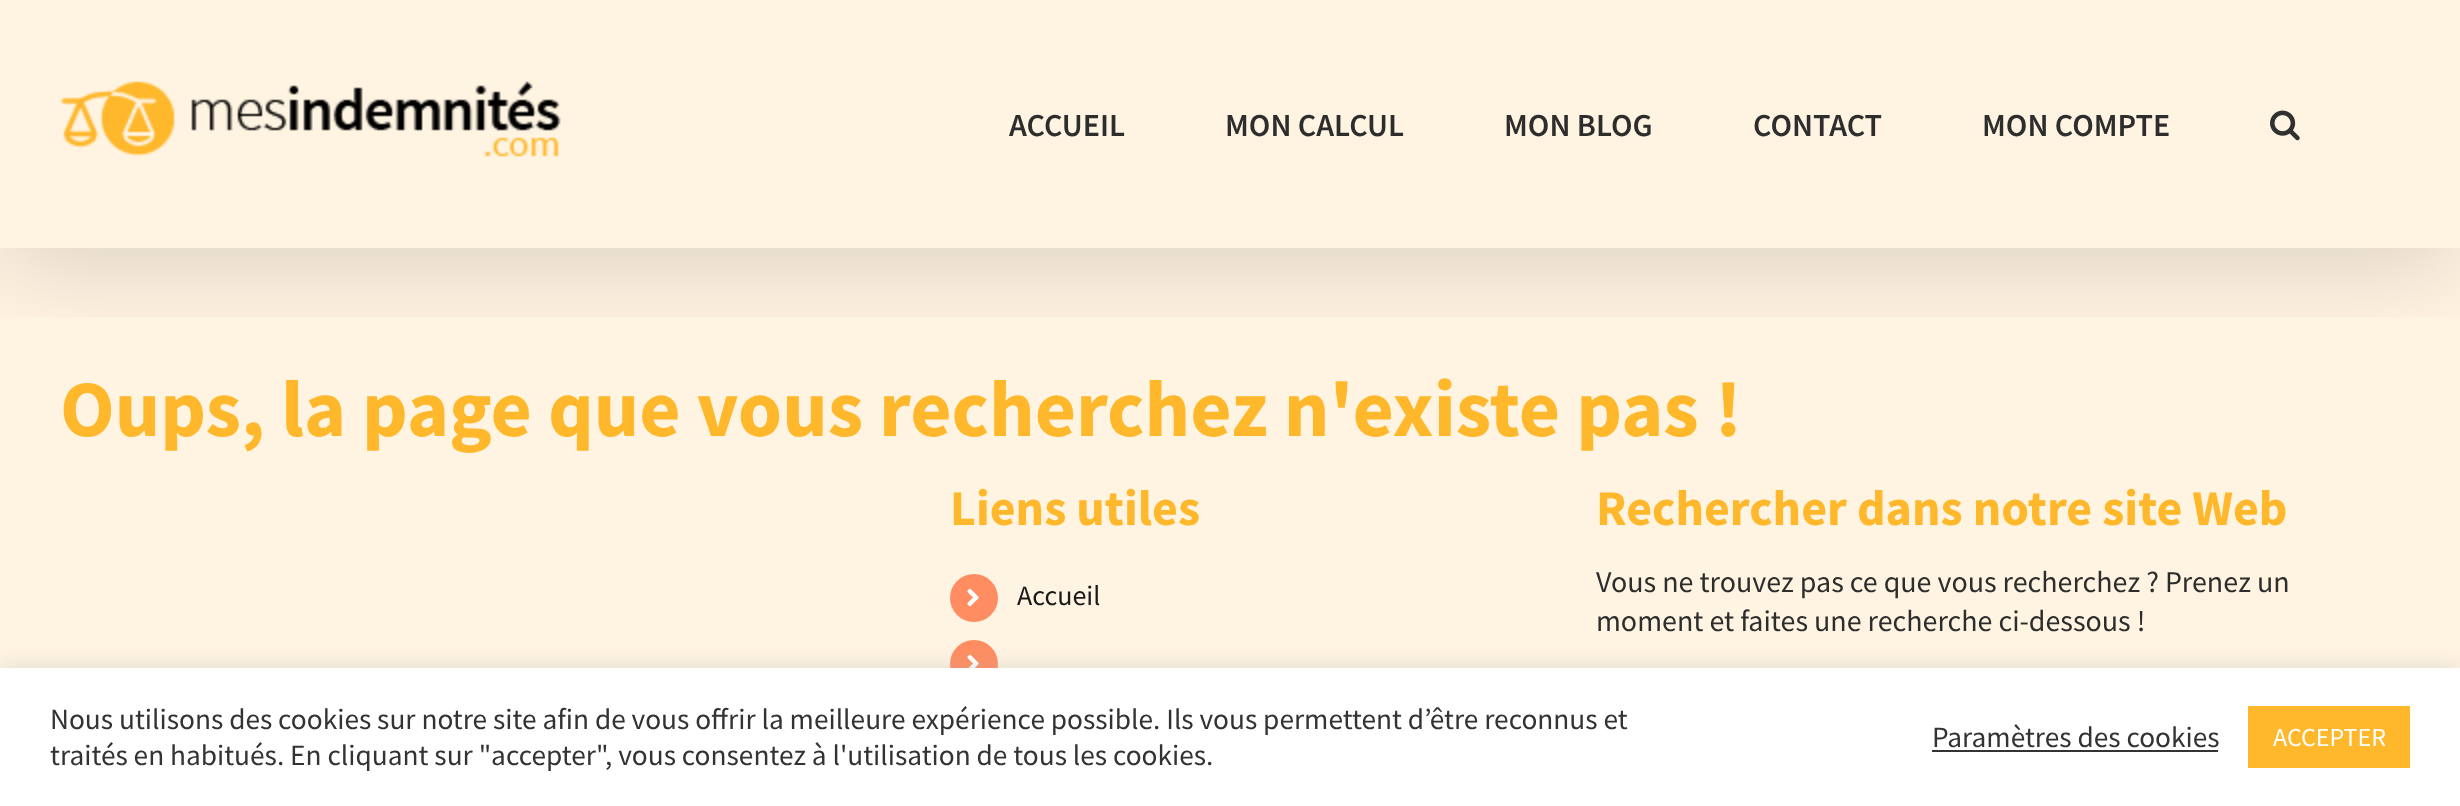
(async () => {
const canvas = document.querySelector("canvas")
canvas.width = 2460
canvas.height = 806
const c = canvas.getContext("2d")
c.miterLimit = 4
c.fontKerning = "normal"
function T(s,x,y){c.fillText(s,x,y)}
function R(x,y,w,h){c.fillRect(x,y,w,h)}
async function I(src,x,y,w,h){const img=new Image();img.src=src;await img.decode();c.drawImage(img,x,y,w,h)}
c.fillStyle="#fff4e2"
R(0,0,2460,806)
c.save()
c.beginPath()
c.rect(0,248,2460,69)
c.clip()
c.fillStyle="#00000024"
c.filter="blur(50px)"
c.beginPath()
c.rect(4,24,2452,240)
c.fill()
c.filter="none"
c.restore()
await I("1.png",60,81,501,76)
c.font="600 32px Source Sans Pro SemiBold"
c.fillStyle="#2d2d2d"
T("ACCUEIL",1009,136)
T("MON CALCUL",1225,136)
T("MON BLOG",1504,136)
T("CONTACT",1753,136)
T("MON COMPTE",1982,136)
await I("2.png",2270,110,30,31)
c.font="bold 80px Source Sans Pro"
c.fillStyle="#ffb72b"
T("Oups, la page que vous recherchez n'existe pas !",60,436)
c.font="bold 50px Source Sans Pro"
T("Liens utiles",950,525)
c.fillStyle="#ff8d61"
c.beginPath()
c.arc(974,598,24,0,7)
c.fill()
await I("3.png",967,588,12,19)
c.font="28px Source Sans Pro"
c.fillStyle="#191919"
T("Accueil",1017,605)
c.fillStyle="#ff8d61"
c.beginPath()
c.arc(974,664,24,0,7)
c.fill()
await I("4.png",967,654,12,14)
c.font="bold 50px Source Sans Pro"
c.fillStyle="#ffb72b"
T("Rechercher dans notre site Web",1596,525)
c.font="30px Source Sans Pro"
c.fillStyle="#2d2d2d"
T("Vous ne trouvez pas ce que vous recherchez ? Prenez un",1596,592)
T("moment et faites une recherche ci-dessous !",1596,631)
c.fillStyle="#acabab4d"
c.filter="blur(10px)"
c.beginPath()
c.rect(0,666,2460,138)
c.fill()
c.filter="none"
c.fillStyle="#fff"
R(0,668,2460,138)
c.font="29.33px Source Sans Pro"
c.fillStyle="#333"
T("Nous utilisons des cookies sur notre site afin de vous offrir la meilleure expérience possible. Ils vous permettent d’être reconnus et",50,729)
T("traités en habitués. En cliquant sur \"accepter\", vous consentez à l'utilisation de tous les cookies.",50,765)
T("Paramètres des cookies",1932,747)
R(1932,750,286,2)
c.fillStyle="#ffb72b"
R(2248,706,162,62)
c.font="26px Source Sans Pro"
c.fillStyle="#fff"
T("ACCEPTER",2273,746)
})()
